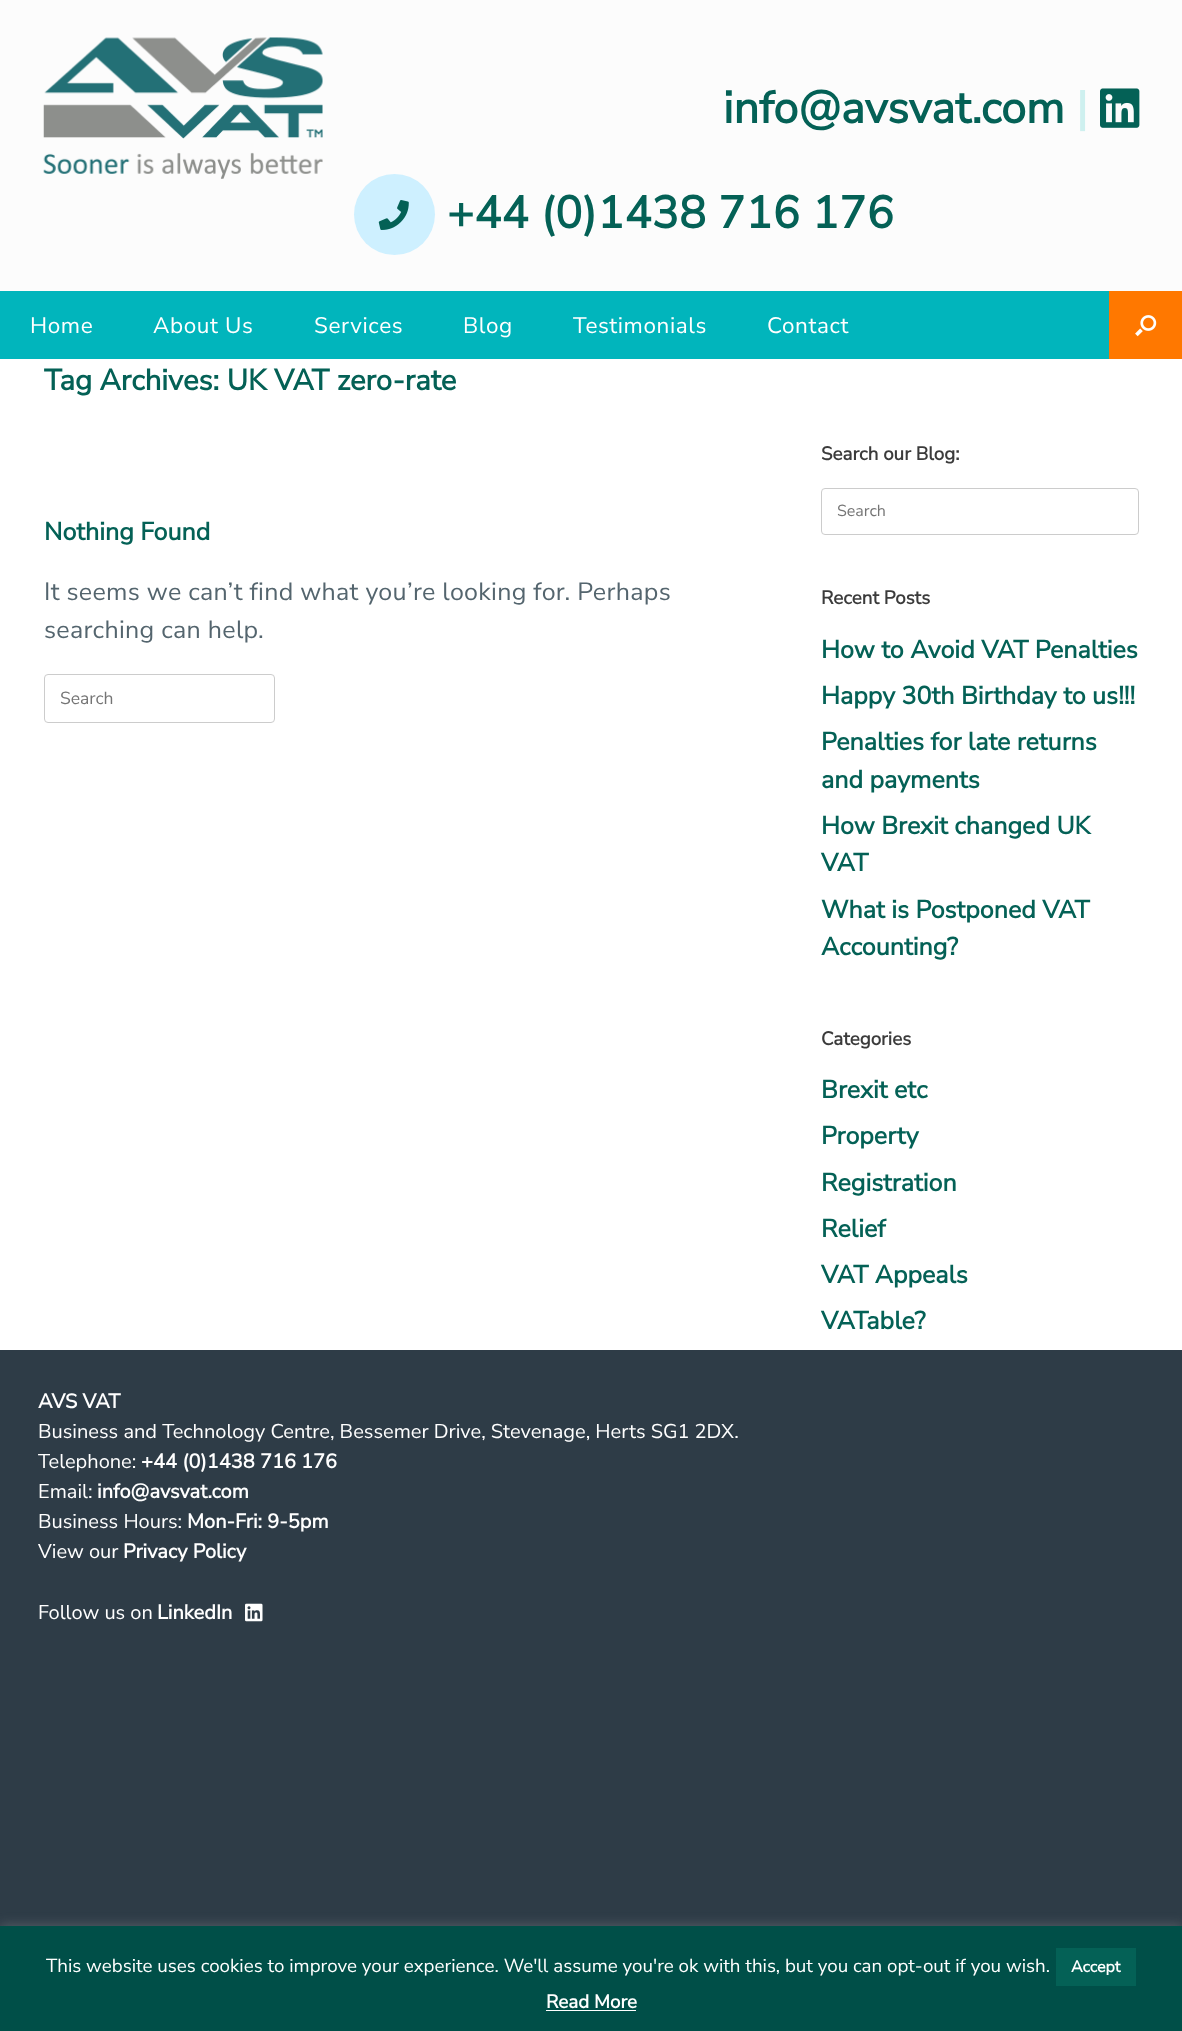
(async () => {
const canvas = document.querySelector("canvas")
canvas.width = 1182
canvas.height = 2031
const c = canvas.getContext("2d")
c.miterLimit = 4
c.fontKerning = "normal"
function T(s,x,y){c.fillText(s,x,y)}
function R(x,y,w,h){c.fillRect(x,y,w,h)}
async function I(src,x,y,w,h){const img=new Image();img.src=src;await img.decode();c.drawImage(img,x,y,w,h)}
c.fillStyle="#2e3c47"
R(0,0,1182,2031)
c.fillStyle="#fcfcfc"
R(0,0,1182,291)
await I("1.png",43,37,280,142)
c.font="bold 45px Nunito Sans"
c.fillStyle="#046156"
T("info@avsvat.com",723,123)
c.fillStyle="#cef0ef"
T("|",1076,123)
await I("2.png",1100,88,40,40)
c.fillStyle="#cef0ff"
c.beginPath()
c.arc(394.5,214.5,40.5,0,7)
c.fill()
await I("3.png",378,200,31,30)
c.letterSpacing="0.3px"
c.fillStyle="#046156"
T("+44 (0)1438 716 176",447,228)
c.fillStyle="#01b5bc"
R(0,291,1109,68)
c.letterSpacing="0.6px"
c.font="200 22.5px Nunito Sans"
c.fillStyle="#fff"
T("Home",30,333)
T("About Us",153,333)
T("Services",314,333)
T("Blog",463,333)
T("Testimonials",573,333)
T("Contact",767,333)
c.fillStyle="#ff7800"
R(1109,291,73,68)
await I("4.png",1135,315,22,22)
c.fillStyle="#fff"
R(0,359,1182,991)
c.letterSpacing="0px"
c.font="bold 29.25px Nunito Sans"
c.fillStyle="#046156"
T("Tag Archives: UK VAT zero-rate",44,390)
c.font="bold 25px Nunito Sans"
T("Nothing Found",44,540)
c.letterSpacing="0.3px"
c.font="200 25px Nunito Sans"
c.fillStyle="#54656e"
T("It seems we can’t find what you’re looking for. Perhaps",44,600)
T("searching can help.",44,638)
c.beginPath()
c.roundRect(44.5,674.5,230,48,3.5)
c.strokeStyle="#ccc"
c.stroke()
c.letterSpacing="0px"
c.font="200 17.5px Nunito Sans"
c.fillStyle="#757575"
T("Search",60,704)
c.font="bold 18.75px Nunito Sans"
c.fillStyle="#3b3b3b"
T("Search our Blog:",821,460)
c.beginPath()
c.roundRect(821.5,488.5,317,46,3.5)
c.stroke()
c.font="200 16px Nunito Sans"
c.fillStyle="#757575"
T("Search",837,516)
c.font="bold 18.75px Nunito Sans"
c.fillStyle="#3b3b3b"
T("Recent Posts",821,604)
c.font="bold 25px Nunito Sans"
c.fillStyle="#046156"
T("How to Avoid VAT Penalties",821,658)
T("Happy 30th Birthday to us!!!",821,704)
T("Penalties for late returns",821,750)
T("and payments",821,788)
T("How Brexit changed UK",821,834)
T("VAT",821,871)
T("What is Postponed VAT",821,918)
T("Accounting?",821,955)
c.font="bold 18.75px Nunito Sans"
c.fillStyle="#3b3b3b"
T("Categories",821,1045)
c.font="bold 25px Nunito Sans"
c.fillStyle="#046156"
T("Brexit etc",821,1098)
T("Property",821,1144)
T("Registration",821,1191)
T("Relief",821,1237)
T("VAT Appeals",821,1283)
T("VATable?",821,1329)
c.font="bold 20px Nunito Sans"
c.fillStyle="#fff"
T("AVS VAT",38,1408)
c.font="200 20px Nunito Sans"
T("Business and Technology Centre, Bessemer Drive, Stevenage, Herts SG1 2DX.",38,1438)
T("Telephone:",38,1468)
c.font="bold 20px Nunito Sans"
T("+44 (0)1438 716 176",141,1468)
c.font="200 20px Nunito Sans"
T("Email:",38,1498)
c.font="bold 20px Nunito Sans"
T("info@avsvat.com",97,1498)
c.font="200 20px Nunito Sans"
T("Business Hours:",38,1528)
c.font="bold 20px Nunito Sans"
T("Mon-Fri: 9-5pm",187,1528)
c.font="200 20px Nunito Sans"
T("View our",38,1558)
c.font="bold 20px Nunito Sans"
T("Privacy Policy",123,1558)
c.font="200 20px Nunito Sans"
T("Follow us on",38,1619)
c.font="bold 20px Nunito Sans"
T("LinkedIn",157,1619)
await I("5.png",245,1603,18,19)
c.fillStyle="#acabab4d"
c.filter="blur(6px)"
c.beginPath()
c.rect(0,1925,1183,105)
c.fill()
c.filter="none"
c.fillStyle="#004f48"
R(0,1926,1182,105)
c.font="200 18.75px Nunito Sans"
c.fillStyle="#fff"
T("This website uses cookies to improve your experience. We'll assume you're ok with this, but you can opt-out if you wish.",46,1972)
c.fillStyle="#046156"
R(1056,1948,80,38)
c.font="bold 16px Nunito Sans"
c.fillStyle="#fff"
T("Accept",1071,1972)
c.font="bold 18.75px Nunito Sans"
T("Read More",546,2008)
R(546,2010,90,1)
})()
